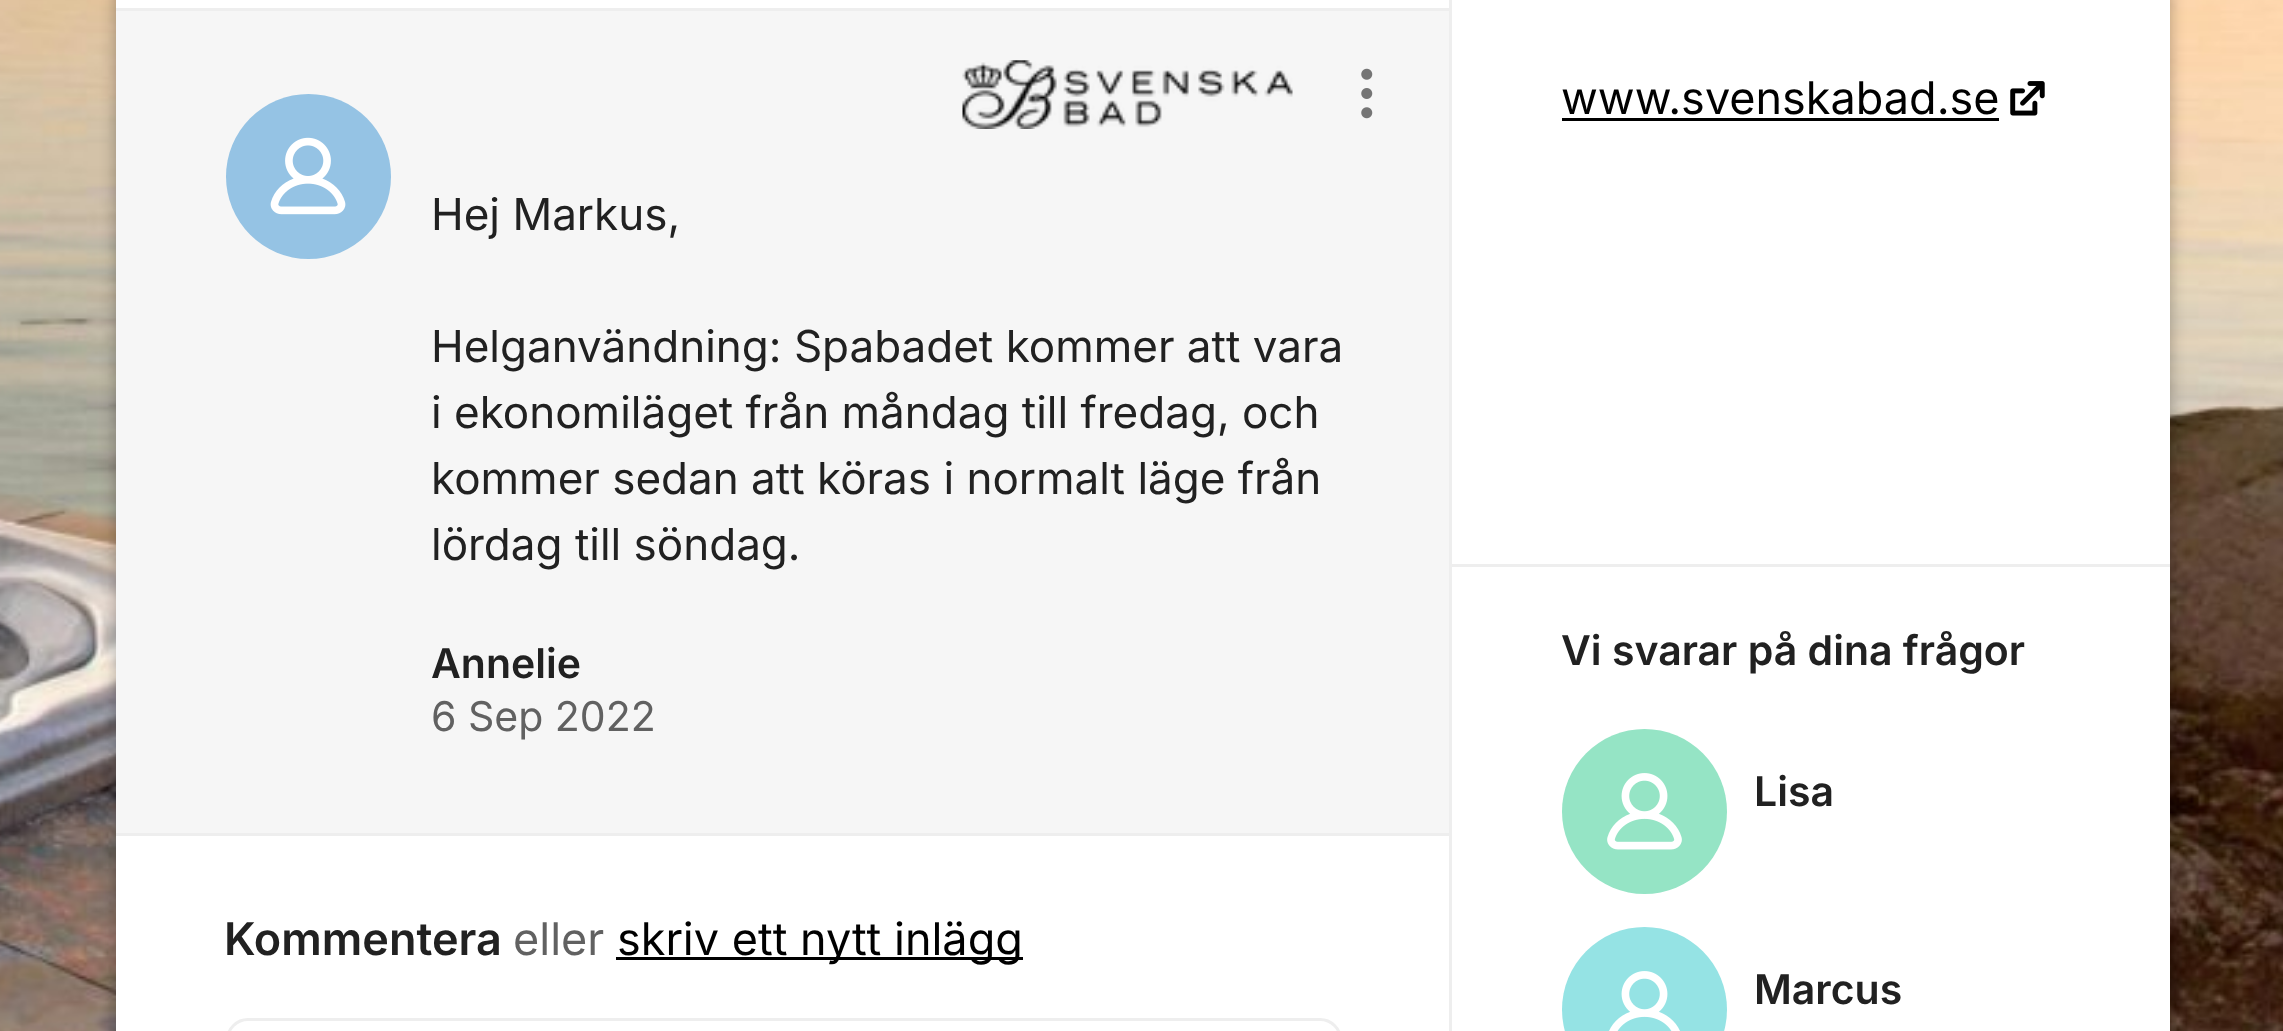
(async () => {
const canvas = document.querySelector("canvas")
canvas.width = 2283
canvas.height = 1031
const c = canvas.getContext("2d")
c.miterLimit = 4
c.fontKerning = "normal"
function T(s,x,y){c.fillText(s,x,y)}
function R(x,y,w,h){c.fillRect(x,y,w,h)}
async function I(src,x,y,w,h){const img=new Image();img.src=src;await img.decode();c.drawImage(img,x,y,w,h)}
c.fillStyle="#fff"
R(0,0,2283,1031)
await I("1.png",0,0,2283,1031)
c.fillStyle="#0000004d"
c.filter="blur(8px)"
c.beginPath()
c.roundRect(116,-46,2054,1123,22)
c.fill()
c.filter="none"
c.fillStyle="#fff"
R(116,0,2054,1031)
c.fillStyle="#f6f6f6"
R(116,11,1333,822)
c.fillStyle="#eee"
R(116,8,1336,3)
await I("2.png",962,60,331,69)
c.font="44px Inter"
c.fillStyle="#212121"
T("Hej Markus,",431,230)
T("Helganvändning: Spabadet kommer att vara",431,362)
T("i ekonomiläget från måndag till fredag, och",431,428)
T("kommer sedan att köras i normalt läge från",431,494)
T("lördag till söndag.",431,560)
c.fillStyle="#95c3e4"
c.beginPath()
c.arc(308.5,176.5,82.5,0,7)
c.fill()
await I("3.png",270,137,76,78)
c.font="600 41px Inter"
c.fillStyle="#212121"
T("Annelie",431,678)
await I("4.png",1361,68,12,51)
c.font="41px Inter"
c.fillStyle="#616161"
T("6 Sep 2022",431,731)
c.fillStyle="#eee"
R(116,833,1336,3)
c.font="600 45px Inter"
c.fillStyle="#212121"
T("Kommentera",224,955)
c.font="45px Inter"
c.fillStyle="#616161"
T("eller",513,955)
c.fillStyle="#000"
R(616,957,407,3)
T("skriv ett nytt inlägg",617,955)
c.beginPath()
c.roundRect(227.5,1019.5,1113,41,26.5)
c.strokeStyle="#eee"
c.lineWidth=3
c.stroke()
c.fillStyle="#eee"
R(1449,0,3,1031)
R(1452,564,718,3)
c.fillStyle="#000"
T("www.svenskabad.se",1561,114)
R(1562,118,437,3)
await I("5.png",2010,81,35,35)
c.font="600 41px Inter"
c.fillStyle="#212121"
T("Vi svarar på dina frågor",1561,665)
c.fillStyle="#95e4c5"
c.beginPath()
c.arc(1644.5,811.5,82.5,0,7)
c.fill()
await I("6.png",1607,773,75,77)
c.fillStyle="#212121"
T("Lisa",1754,806)
c.fillStyle="#95e3e4"
c.beginPath()
c.arc(1644.5,1009.5,82.5,0,7)
c.fill()
await I("7.png",1609,971,71,60)
c.fillStyle="#212121"
T("Marcus",1754,1004)
})()
